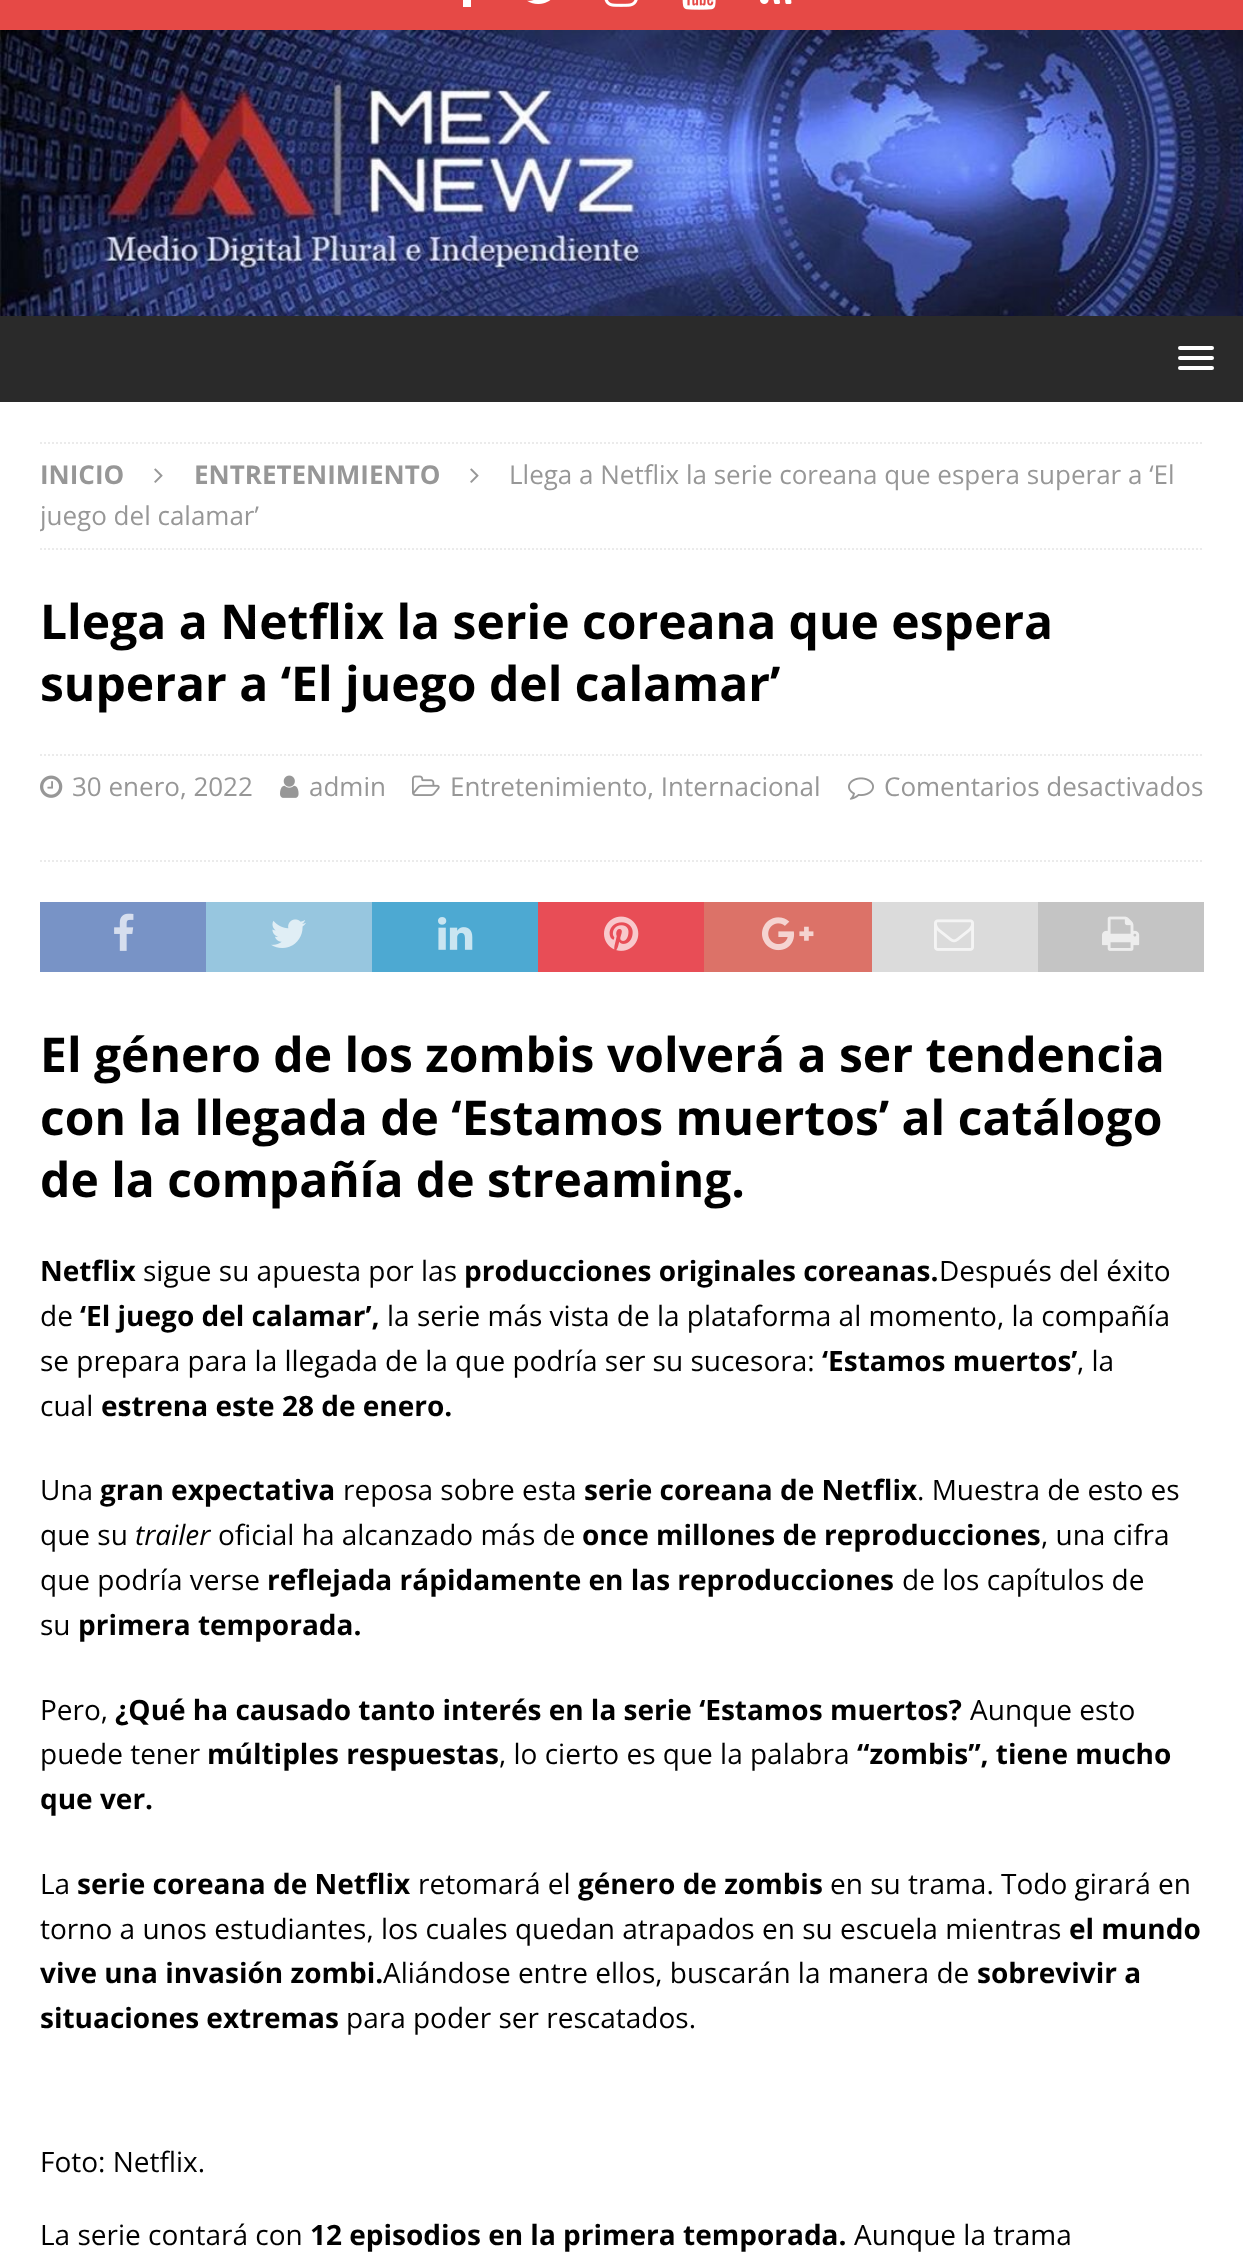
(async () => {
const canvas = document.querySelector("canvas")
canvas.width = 1243
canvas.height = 2256
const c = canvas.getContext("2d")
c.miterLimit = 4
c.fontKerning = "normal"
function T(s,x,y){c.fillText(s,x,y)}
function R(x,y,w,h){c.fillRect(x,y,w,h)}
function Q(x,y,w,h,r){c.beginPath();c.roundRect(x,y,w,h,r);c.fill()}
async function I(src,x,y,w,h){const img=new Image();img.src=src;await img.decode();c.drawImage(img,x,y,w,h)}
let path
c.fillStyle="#e64946"
R(0,0,1243,2256)
c.fillStyle="#fff"
R(463,0,8,7)
await I("1.png",527,0,24,4)
await I("2.png",604,0,34,7)
await I("3.png",682,0,34,10)
await I("4.png",760,0,32,4)
await I("5.png",0,30,1243,286)
c.fillStyle="#2a2a2a"
R(0,316,1243,86)
c.fillStyle="#fff"
Q(1178,346,36,4,2)
Q(1178,356,36,4,2)
Q(1178,366,36,4,2)
R(0,402,1243,1854)
path = new Path2D("M40 443h1164")
c.strokeStyle="#ebebeb"
c.lineWidth=2
c.setLineDash([2,2])
c.stroke(path)
path = new Path2D("M40 549h1164")
c.stroke(path)
c.font="bold 26px Open Sans"
c.fillStyle="#979797"
T("INICIO",40,484)
await I("6.png",154,468,9,15)
T("ENTRETENIMIENTO",194,484)
await I("6.png",470,468,9,15)
c.font="26px Open Sans"
T("Llega a Netflix la serie coreana que espera superar a ‘El",509,484)
c.save()
c.beginPath()
c.rect(40,442,1164,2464)
c.clip()
T("juego del calamar’",40,525)
c.restore()
c.font="bold 48px Open Sans"
c.fillStyle="#000"
T("Llega a Netflix la serie coreana que espera",40,639)
T("superar a ‘El juego del calamar’",40,701)
path = new Path2D("M40 755h1164")
c.stroke(path)
path = new Path2D("M40 861h1164")
c.stroke(path)
await I("7.png",40,775,23,23)
c.font="26px Open Sans"
c.fillStyle="#979797"
T("30 enero, 2022",72,796)
await I("8.png",280,775,19,23)
T("admin",309,796)
await I("9.png",412,775,28,21)
T("Entretenimiento, Internacional",450,796)
await I("10.png",848,777,26,23)
T("Comentarios desactivados",884,796)
c.fillStyle="#7893c6"
R(40,902,166,70)
await I("11.png",114,913,20,38)
c.fillStyle="#97c6df"
R(206,902,166,70)
await I("12.png",271,919,35,29)
c.fillStyle="#4da9d2"
R(372,902,166,70)
await I("13.png",438,917,35,33)
c.fillStyle="#e84d56"
R(538,902,166,70)
await I("14.png",604,916,35,35)
c.fillStyle="#dc7268"
R(704,902,168,70)
await I("15.png",762,917,52,34)
c.fillStyle="#dbdbdb"
R(872,902,166,70)
await I("16.png",934,919,40,32)
c.fillStyle="#c4c4c4"
R(1038,902,166,70)
await I("17.png",1102,916,38,35)
c.font="bold 48px Open Sans"
c.fillStyle="#000"
T("El género de los zombis volverá a ser tendencia",40,1072)
T("con la llegada de ‘Estamos muertos’ al catálogo",40,1135)
T("de la compañía de streaming.",40,1197)
c.font="bold 28px Open Sans"
T("Netflix",40,1281)
c.font="28px Open Sans"
T("sigue su apuesta por las",143,1281)
c.font="bold 28px Open Sans"
T("producciones originales coreanas.",464,1281)
c.font="28px Open Sans"
T("Después del éxito",939,1281)
T("de",40,1326)
c.font="bold 28px Open Sans"
T("‘El juego del calamar’,",80,1326)
c.font="28px Open Sans"
T("la serie más vista de la plataforma al momento, la compañía",387,1326)
T("se prepara para la llegada de la que podría ser su sucesora:",40,1371)
c.font="bold 28px Open Sans"
T("‘Estamos muertos’",822,1371)
c.font="28px Open Sans"
T(", la",1077,1371)
T("cual",40,1416)
c.font="bold 28px Open Sans"
T("estrena este 28 de enero.",101,1416)
c.font="28px Open Sans"
T("Una",40,1500)
c.font="bold 28px Open Sans"
T("gran expectativa",100,1500)
c.font="28px Open Sans"
T("reposa sobre esta",343,1500)
c.font="bold 28px Open Sans"
T("serie coreana de Netflix",584,1500)
c.font="28px Open Sans"
T(". Muestra de esto es",917,1500)
T("que su",40,1545)
c.font="italic 28px Open Sans"
T("trailer",135,1545)
c.font="28px Open Sans"
T("oficial ha alcanzado más de",218,1545)
c.font="bold 28px Open Sans"
T("once millones de reproducciones",582,1545)
c.font="28px Open Sans"
T(", una cifra",1041,1545)
T("que podría verse",40,1590)
c.font="bold 28px Open Sans"
T("reflejada rápidamente en las reproducciones",267,1590)
c.font="28px Open Sans"
T("de los capítulos de",902,1590)
T("su",40,1635)
c.font="bold 28px Open Sans"
T("primera temporada.",78,1635)
c.font="28px Open Sans"
T("Pero,",40,1720)
c.font="bold 28px Open Sans"
T("¿Qué ha causado tanto interés en la serie ‘Estamos muertos?",115,1720)
c.font="28px Open Sans"
T("Aunque esto",970,1720)
T("puede tener",40,1764)
c.font="bold 28px Open Sans"
T("múltiples respuestas",207,1764)
c.font="28px Open Sans"
T(", lo cierto es que la palabra",499,1764)
c.font="bold 28px Open Sans"
T("“zombis”, tiene mucho",857,1764)
T("que ver.",40,1809)
c.font="28px Open Sans"
T("La",40,1894)
c.font="bold 28px Open Sans"
T("serie coreana de Netflix",77,1894)
c.font="28px Open Sans"
T("retomará el",418,1894)
c.font="bold 28px Open Sans"
T("género de zombis",578,1894)
c.font="28px Open Sans"
T("en su trama. Todo girará en",830,1894)
T("torno a unos estudiantes, los cuales quedan atrapados en su escuela mientras",40,1939)
c.font="bold 28px Open Sans"
T("el mundo",1069,1939)
T("vive una invasión zombi.",40,1983)
c.font="28px Open Sans"
T("Aliándose entre ellos, buscarán la manera de",383,1983)
c.font="bold 28px Open Sans"
T("sobrevivir a",977,1983)
T("situaciones extremas",40,2028)
c.font="28px Open Sans"
T("para poder ser rescatados.",346,2028)
T("Foto: Netflix.",40,2172)
T("La serie contará con",40,2245)
c.font="bold 28px Open Sans"
T("12 episodios en la primera temporada.",310,2245)
c.font="28px Open Sans"
T("Aunque la trama",854,2245)
})()
